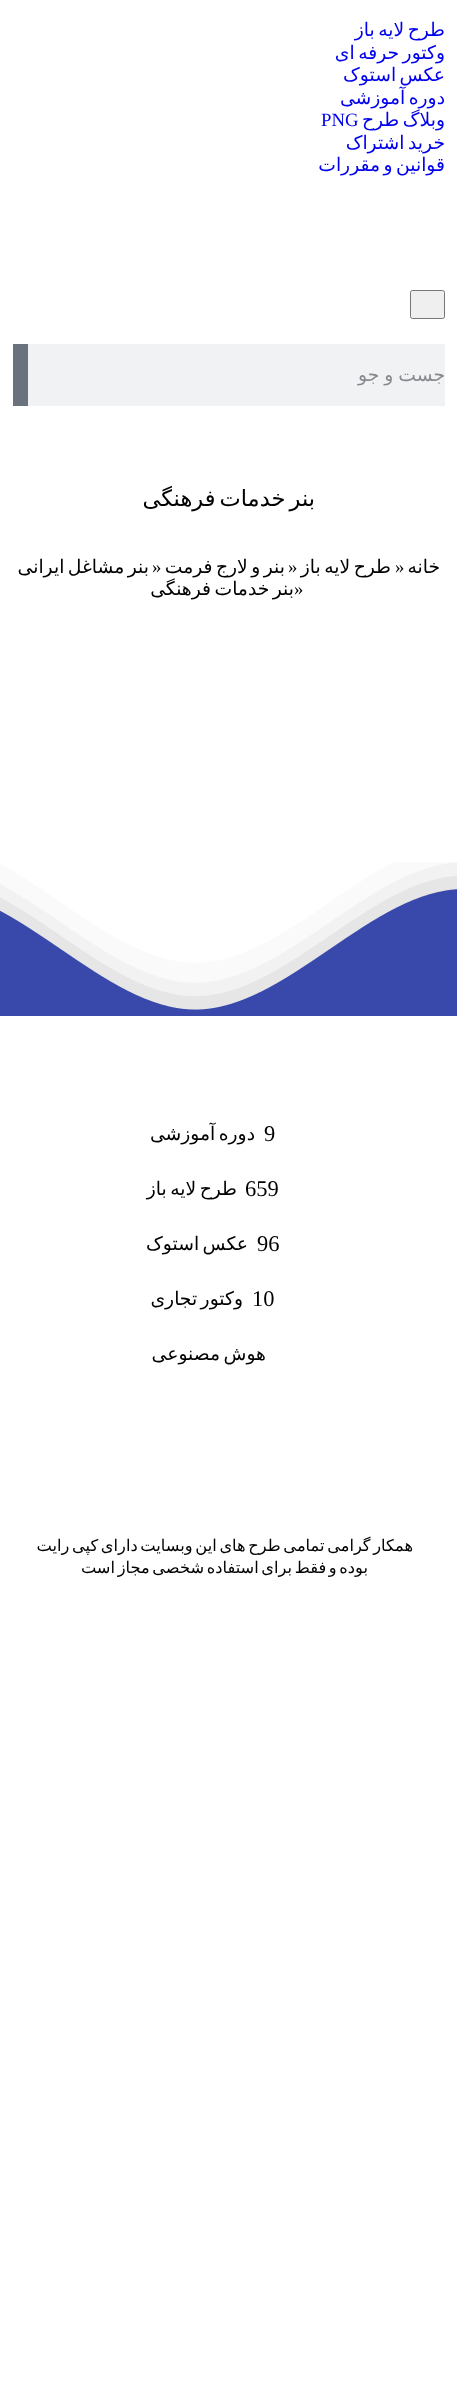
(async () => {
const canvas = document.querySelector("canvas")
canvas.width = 457
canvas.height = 2396
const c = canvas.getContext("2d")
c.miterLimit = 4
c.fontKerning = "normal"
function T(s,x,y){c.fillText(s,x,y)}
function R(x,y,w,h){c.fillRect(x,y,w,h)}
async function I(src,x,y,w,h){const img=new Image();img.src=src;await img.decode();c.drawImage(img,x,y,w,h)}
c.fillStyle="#fff"
R(0,0,457,2396)
c.save()
c.beginPath()
c.rect(319,0,126,2396)
c.clip()
c.wordSpacing="-2.5px"
c.direction="rtl"
c.font="18.75px DejaVu Sans"
c.fillStyle="#00e"
T("طرح لایه باز",445,36)
T("وکتور حرفه ای",445,59)
c.restore()
c.wordSpacing="-2.5px"
c.direction="rtl"
c.font="18.75px DejaVu Sans"
c.fillStyle="#00e"
T("عکس استوک",445,81)
c.save()
c.beginPath()
c.rect(319,0,126,2396)
c.clip()
T("دوره آموزشی",445,104)
T("وبلاگ طرح",445,126)
c.restore()
c.wordSpacing="0px"
c.direction="ltr"
c.font="18.75px Liberation Serif"
T("PNG",321,126)
c.save()
c.beginPath()
c.rect(319,0,126,2396)
c.clip()
c.wordSpacing="-2.5px"
c.direction="rtl"
c.font="18.75px DejaVu Sans"
T("خرید اشتراک",445,149)
T("قوانین و مقررات",445,171)
c.restore()
c.fillStyle="#efefef"
c.beginPath()
c.roundRect(410.5,290.5,34,28,2)
c.fill()
c.strokeStyle="#767676"
c.stroke()
c.fillStyle="#f1f2f3"
R(28,344,417,62)
c.save()
c.beginPath()
c.rect(45,364,400,22)
c.clip()
c.wordSpacing="-1px"
c.direction="rtl"
c.font="18.75px DejaVu Sans"
c.fillStyle="#868a8e"
T("جست و جو",445,381)
c.restore()
c.fillStyle="#69727d"
R(13,344,15,62)
c.wordSpacing="-3px"
c.direction="rtl"
c.font="22.5px DejaVu Sans"
c.fillStyle="#000"
T("بنر خدمات فرهنگی",315,506)
c.wordSpacing="0px"
c.font="18.75px DejaVu Sans"
T("خانه",440,573)
c.direction="ltr"
c.font="18.75px Liberation Serif"
T("»",395,573)
c.wordSpacing="-2.5px"
c.direction="rtl"
c.font="18.75px DejaVu Sans"
T("طرح لایه باز",391,573)
c.wordSpacing="0px"
c.direction="ltr"
c.font="18.75px Liberation Serif"
T("»",288,573)
c.wordSpacing="-2.5px"
c.direction="rtl"
c.font="18.75px DejaVu Sans"
T("بنر و لارج فرمت",285,573)
c.wordSpacing="0px"
c.direction="ltr"
c.font="18.75px Liberation Serif"
T("»",152,573)
c.wordSpacing="-2.5px"
c.direction="rtl"
c.font="18.75px DejaVu Sans"
T("بنر مشاغل ایرانی",149,573)
c.wordSpacing="0px"
c.direction="ltr"
c.font="18.75px Liberation Serif"
T("»",294,595)
c.wordSpacing="-2.5px"
c.direction="rtl"
c.font="18.75px DejaVu Sans"
T("بنر خدمات فرهنگی",294,595)
await I("1.png",0,862,457,154)
c.wordSpacing="0px"
c.direction="ltr"
c.font="22.5px Liberation Serif"
T("9",264,1141)
c.wordSpacing="-2.5px"
c.direction="rtl"
c.font="18.75px DejaVu Sans"
T("دوره آموزشی",255,1140)
c.wordSpacing="0px"
c.direction="ltr"
c.font="22.5px Liberation Serif"
T("659",245,1196)
c.wordSpacing="-2.5px"
c.direction="rtl"
c.font="18.75px DejaVu Sans"
T("طرح لایه باز",237,1195)
c.wordSpacing="0px"
c.direction="ltr"
c.font="22.5px Liberation Serif"
T("96",257,1251)
c.wordSpacing="-2.5px"
c.direction="rtl"
c.font="18.75px DejaVu Sans"
T("عکس استوک",248,1250)
c.wordSpacing="0px"
c.direction="ltr"
c.font="22.5px Liberation Serif"
T("10",252,1306)
c.wordSpacing="-2.5px"
c.direction="rtl"
c.font="18.75px DejaVu Sans"
T("وکتور تجاری",243,1305)
T("هوش مصنوعی",266,1360)
c.font="16.25px DejaVu Sans"
T("همکار گرامی تمامی طرح های این وبسایت دارای کپی رایت",413,1551)
T("بوده و فقط برای استفاده شخصی مجاز است",368,1573)
})()
